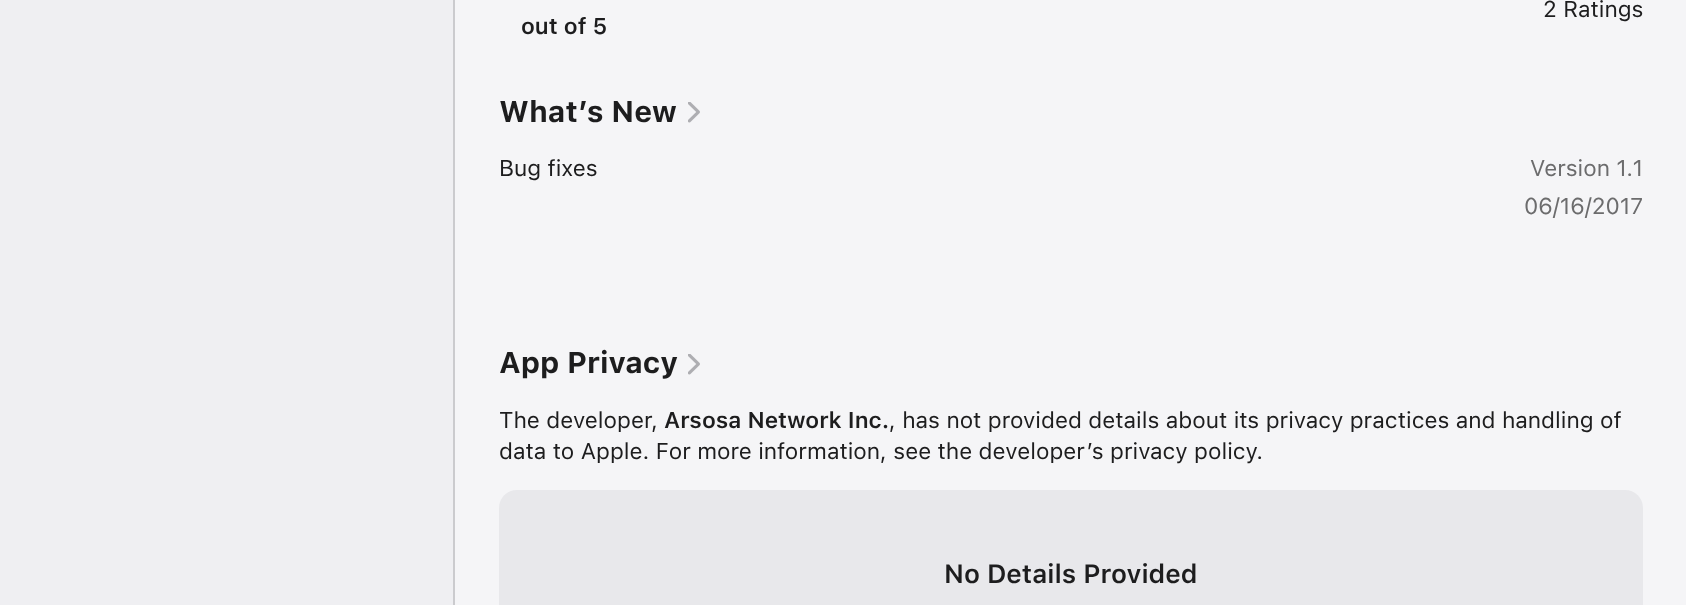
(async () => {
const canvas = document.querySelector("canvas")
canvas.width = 1686
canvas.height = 605
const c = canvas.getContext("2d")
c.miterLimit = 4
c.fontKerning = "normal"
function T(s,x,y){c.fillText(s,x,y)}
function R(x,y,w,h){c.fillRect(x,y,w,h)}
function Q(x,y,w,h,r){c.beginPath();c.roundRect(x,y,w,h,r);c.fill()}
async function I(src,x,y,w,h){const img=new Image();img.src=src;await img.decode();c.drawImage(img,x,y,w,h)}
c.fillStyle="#f5f5f7"
R(0,0,1686,605)
c.fillStyle="#efeff2"
R(0,0,453,605)
c.fillStyle="#cbcbce"
R(453,0,2,605)
c.font="22.75px SF"
c.fillStyle="#1d1d1e"
T("2 Ratings",1543,17)
c.font="600 22.75px SF"
T("out of 5",521,34)
c.font="bold 29.75px SF"
T("What’s New",499,122)
await I("1.png",688,102,12,21)
c.font="22.75px SF"
T("Bug fixes",499,176)
c.fillStyle="#6c6c6d"
T("Version 1.1",1530,176)
T("06/16/2017",1524,214)
c.font="bold 29.75px SF"
c.fillStyle="#1d1d1e"
T("App Privacy",499,373)
await I("1.png",688,354,12,21)
c.font="22.75px SF"
T("The developer,",499,428)
c.font="600 22.75px SF"
T("Arsosa Network Inc.",664,428)
c.font="22.75px SF"
T(", has not provided details about its privacy practices and handling of",889,428)
T("data to Apple. For more information, see the developer’s privacy policy.",499,459)
c.fillStyle="#e8e8eb"
Q(499,490,1144,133,18)
c.font="600 26.25px SF"
c.fillStyle="#1d1d1e"
T("No Details Provided",944,583)
})()
